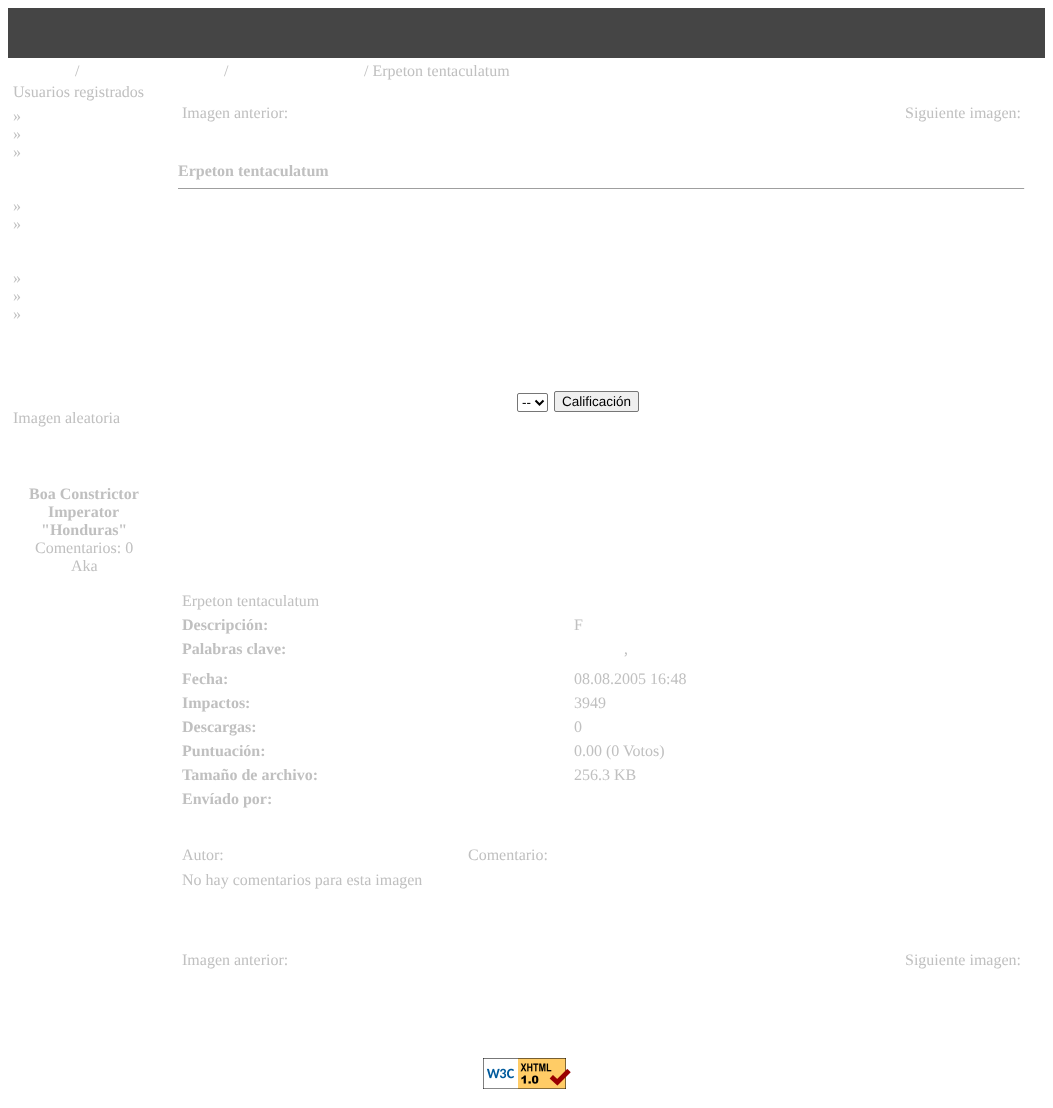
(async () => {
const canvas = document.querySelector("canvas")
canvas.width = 1053
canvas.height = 1108
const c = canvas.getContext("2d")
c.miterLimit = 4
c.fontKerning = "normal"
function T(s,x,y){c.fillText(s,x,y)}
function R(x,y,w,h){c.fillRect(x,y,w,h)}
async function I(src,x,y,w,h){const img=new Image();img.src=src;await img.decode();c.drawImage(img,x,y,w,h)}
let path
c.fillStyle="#fff"
R(0,0,1053,1108)
c.fillStyle="#454545"
R(8,8,1037,50)
c.font="16px Liberation Serif"
c.fillStyle="#c0c0c0"
T("/",75,76)
T("/",224,76)
T("/ Erpeton tentaculatum",364,76)
T("Usuarios registrados",13,97)
T("»",13,121)
T("»",13,139)
T("»",13,157)
T("»",13,211)
T("»",13,229)
T("»",13,283)
T("»",13,301)
T("»",13,319)
T("Imagen aleatoria",13,423)
c.font="bold 16px Liberation Serif"
T("Boa Constrictor",29,499)
T("Imperator",48,517)
T("\"Honduras\"",41,535)
c.font="16px Liberation Serif"
T("Comentarios: 0",35,553)
T("Aka",71,571)
T("Imagen anterior:",182,118)
T("Siguiente imagen:",905,118)
c.font="bold 16px Liberation Serif"
T("Erpeton tentaculatum",178,176)
c.fillStyle="#9f9f9f"
R(178,188,847,1)
c.fillStyle="#eee"
R(1024,188,1,1)
c.beginPath()
c.roundRect(517.5,393.5,30,18,1.5)
c.strokeStyle="#767676"
c.stroke()
path = new Path2D("M535.5 400.5l4 4l4-4")
c.strokeStyle="#000"
c.lineWidth=2
c.stroke(path)
c.font="13.5px Liberation Sans"
c.fillStyle="#000"
T("--",522,407)
c.fillStyle="#efefef"
c.beginPath()
c.roundRect(554.5,391.5,84,20,1.5)
c.fill()
c.strokeStyle="#767676"
c.lineWidth=1
c.stroke()
c.fillStyle="#000"
T("Calificación",562,406)
c.font="16px Liberation Serif"
c.fillStyle="#c0c0c0"
T("Erpeton tentaculatum",182,606)
c.font="bold 16px Liberation Serif"
T("Descripción:",182,630)
c.font="16px Liberation Serif"
T("F",574,630)
c.font="bold 16px Liberation Serif"
T("Palabras clave:",182,654)
c.font="16px Liberation Serif"
T(",",624,654)
c.font="bold 16px Liberation Serif"
T("Fecha:",182,684)
c.font="16px Liberation Serif"
T("08.08.2005 16:48",574,684)
c.font="bold 16px Liberation Serif"
T("Impactos:",182,708)
c.font="16px Liberation Serif"
T("3949",574,708)
c.font="bold 16px Liberation Serif"
T("Descargas:",182,732)
c.font="16px Liberation Serif"
T("0",574,732)
c.font="bold 16px Liberation Serif"
T("Puntuación:",182,756)
c.font="16px Liberation Serif"
T("0.00 (0 Votos)",574,756)
c.font="bold 16px Liberation Serif"
T("Tamaño de archivo:",182,780)
c.font="16px Liberation Serif"
T("256.3 KB",574,780)
c.font="bold 16px Liberation Serif"
T("Envíado por:",182,804)
c.font="16px Liberation Serif"
T("Autor:",182,860)
T("Comentario:",468,860)
T("No hay comentarios para esta imagen",182,885)
T("Imagen anterior:",182,965)
T("Siguiente imagen:",905,965)
await I("1.png",483,1058,88,31)
})()
